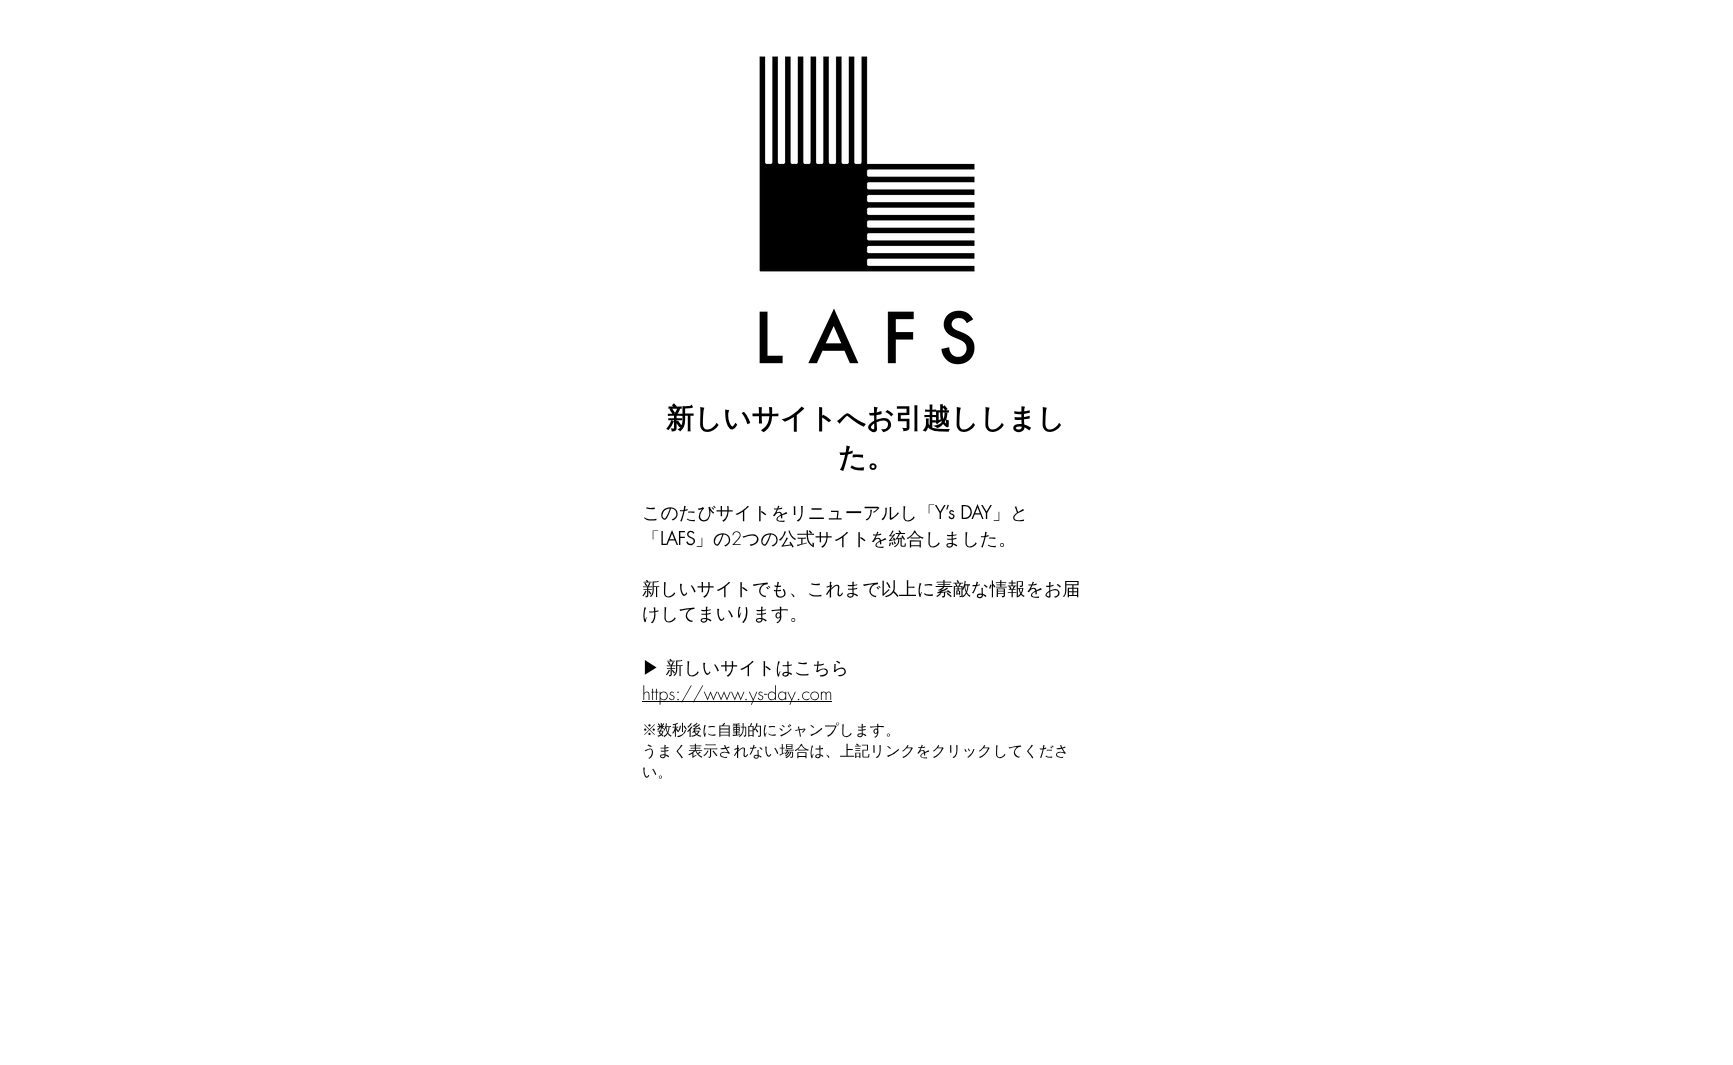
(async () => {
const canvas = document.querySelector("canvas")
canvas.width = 1733
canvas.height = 1065
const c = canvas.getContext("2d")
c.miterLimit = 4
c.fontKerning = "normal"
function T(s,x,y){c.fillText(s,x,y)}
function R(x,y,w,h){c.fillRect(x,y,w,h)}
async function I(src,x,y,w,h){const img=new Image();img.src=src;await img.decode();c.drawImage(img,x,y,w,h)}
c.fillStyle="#fff"
R(0,0,1733,1065)
await I("1.png",759,56,216,309)
c.font="bold 28px WenQuanYi Zen Hei"
c.fillStyle="#000"
T("新しいサイトへお引越ししまし",666,428)
T("た。",838,467)
c.font="500 18px WenQuanYi Zen Hei"
T("このたびサイトをリニューアルし「",642,519)
c.font="bold 18px futura"
T("Y’s DAY",935,519)
c.font="500 18px WenQuanYi Zen Hei"
T("」と",992,519)
T("「",642,545)
c.font="bold 18px futura"
T("LAFS",660,545)
c.font="500 18px WenQuanYi Zen Hei"
T("」の",695,545)
c.font="300 18px futura"
T("2",731,545)
c.font="500 18px WenQuanYi Zen Hei"
T("つの公式サイトを統合しました。",742,545)
T("新しいサイトでも、これまで以上に素敵な情報をお届",642,595)
T("けしてまいります。",642,620)
T("▶ 新しいサイトはこちら",642,674)
R(642,701,190,1)
c.font="300 18px futura"
T("https://www.ys-day.com",642,700)
c.font="500 15px WenQuanYi Zen Hei"
T("※数秒後に自動的にジャンプします。",642,735)
T("うまく表示されない場合は、上記リンクをクリックしてくださ",642,756)
T("い。",642,777)
})()
